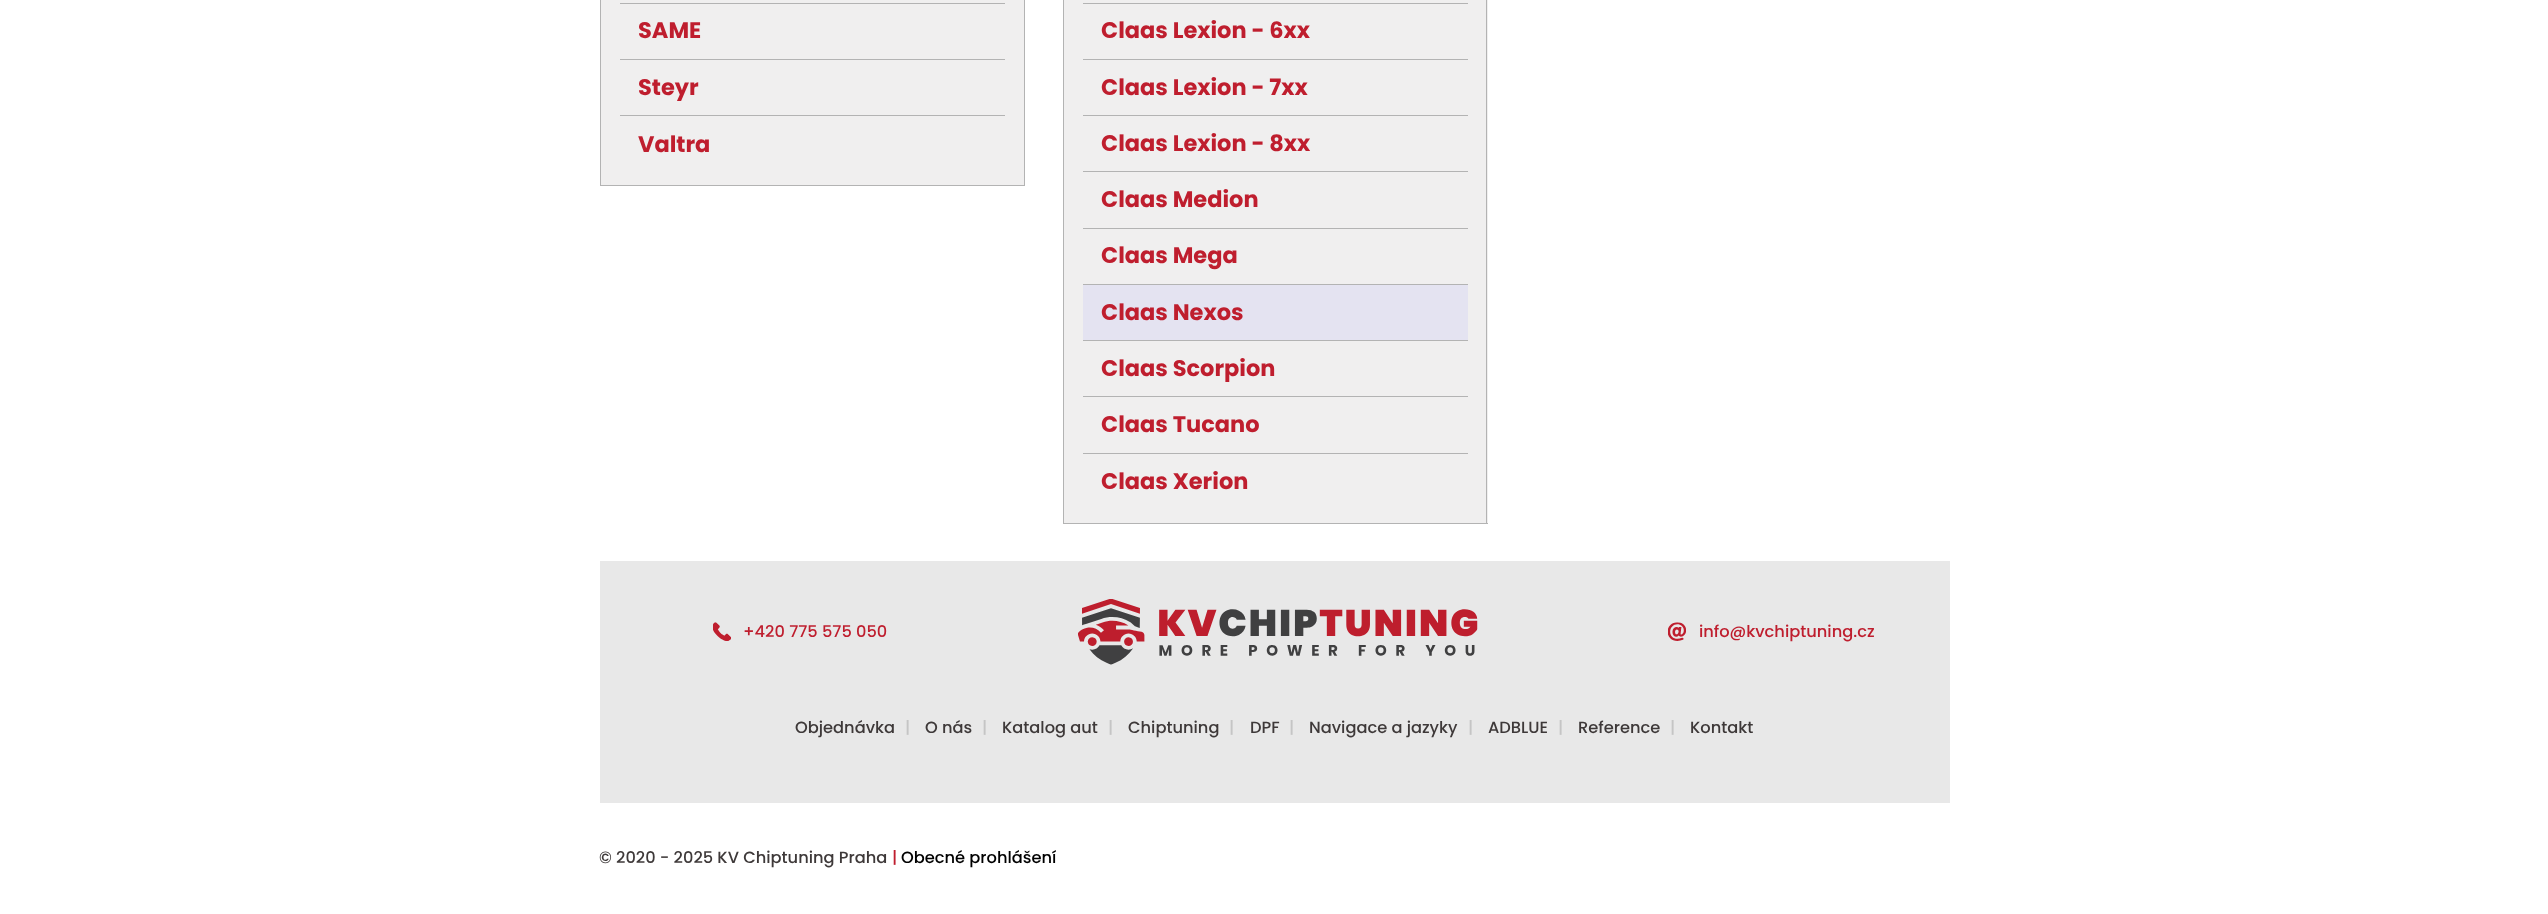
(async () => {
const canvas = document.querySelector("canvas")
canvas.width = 2548
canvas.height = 914
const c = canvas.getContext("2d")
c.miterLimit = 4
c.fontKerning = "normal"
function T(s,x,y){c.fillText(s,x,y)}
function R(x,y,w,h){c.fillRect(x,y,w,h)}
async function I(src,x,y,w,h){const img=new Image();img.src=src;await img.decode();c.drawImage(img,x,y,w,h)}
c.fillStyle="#fff"
R(0,0,2548,914)
c.fillStyle="#f0efef"
R(601,0,423,185)
c.fillStyle="#b3b3b3"
R(1024,0,1,186)
R(600,185,425,1)
R(600,0,1,186)
R(620,3,385,1)
R(620,59,385,1)
c.font="bold 22.5px Poppins"
c.fillStyle="#bf1e2e"
T("SAME",638,38)
c.fillStyle="#b3b3b3"
R(620,115,385,1)
c.fillStyle="#bf1e2e"
T("Steyr",638,95)
T("Valtra",638,152)
c.fillStyle="#f0efef"
R(1064,0,424,523)
c.fillStyle="#b3b3b3"
R(1486,0,1,524)
R(1063,523,425,1)
R(1063,0,1,524)
R(1083,3,385,1)
R(1083,59,385,1)
c.fillStyle="#bf1e2e"
T("Claas Lexion - 6xx",1101,38)
c.fillStyle="#b3b3b3"
R(1083,115,385,1)
c.fillStyle="#bf1e2e"
T("Claas Lexion - 7xx",1101,95)
c.fillStyle="#b3b3b3"
R(1083,171,385,1)
c.fillStyle="#bf1e2e"
T("Claas Lexion - 8xx",1101,151)
c.fillStyle="#b3b3b3"
R(1083,228,385,1)
c.fillStyle="#bf1e2e"
T("Claas Medion",1101,207)
c.fillStyle="#b3b3b3"
R(1083,284,385,1)
c.fillStyle="#bf1e2e"
T("Claas Mega",1101,263)
c.fillStyle="#e4e3f1"
R(1083,285,385,55)
c.fillStyle="#b3b3b3"
R(1083,340,385,1)
c.fillStyle="#bf1e2e"
T("Claas Nexos",1101,320)
c.fillStyle="#b3b3b3"
R(1083,396,385,1)
c.fillStyle="#bf1e2e"
T("Claas Scorpion",1101,376)
c.fillStyle="#b3b3b3"
R(1083,453,385,1)
c.fillStyle="#bf1e2e"
T("Claas Tucano",1101,432)
T("Claas Xerion",1101,489)
c.fillStyle="#e8e8e8"
R(600,561,1350,242)
await I("1.png",713,622,18,19)
c.font="500 16.25px Poppins"
c.fillStyle="#bf1e2e"
T("+420 775 575 050",743,637)
await I("2.png",1078,599,400,66)
await I("3.png",1668,622,18,19)
T("info@kvchiptuning.cz",1699,637)
c.fillStyle="#3e3939"
T("Objednávka",795,733)
c.fillStyle="#c5c5c5"
T("|",905,733)
c.fillStyle="#3e3939"
T("O nás",925,733)
c.fillStyle="#c5c5c5"
T("|",982,733)
c.fillStyle="#3e3939"
T("Katalog aut",1002,733)
c.fillStyle="#c5c5c5"
T("|",1108,733)
c.fillStyle="#3e3939"
T("Chiptuning",1128,733)
c.fillStyle="#c5c5c5"
T("|",1229,733)
c.fillStyle="#3e3939"
T("DPF",1250,733)
c.fillStyle="#c5c5c5"
T("|",1289,733)
c.fillStyle="#3e3939"
T("Navigace a jazyky",1309,733)
c.fillStyle="#c5c5c5"
T("|",1468,733)
c.fillStyle="#3e3939"
T("ADBLUE",1488,733)
c.fillStyle="#c5c5c5"
T("|",1558,733)
c.fillStyle="#3e3939"
T("Reference",1578,733)
c.fillStyle="#c5c5c5"
T("|",1670,733)
c.fillStyle="#3e3939"
T("Kontakt",1690,733)
T("© 2020 - 2025 KV Chiptuning Praha",599,863)
c.fillStyle="#bf1e2e"
T("|",892,863)
c.fillStyle="#000"
T("Obecné prohlášení",901,863)
})()
